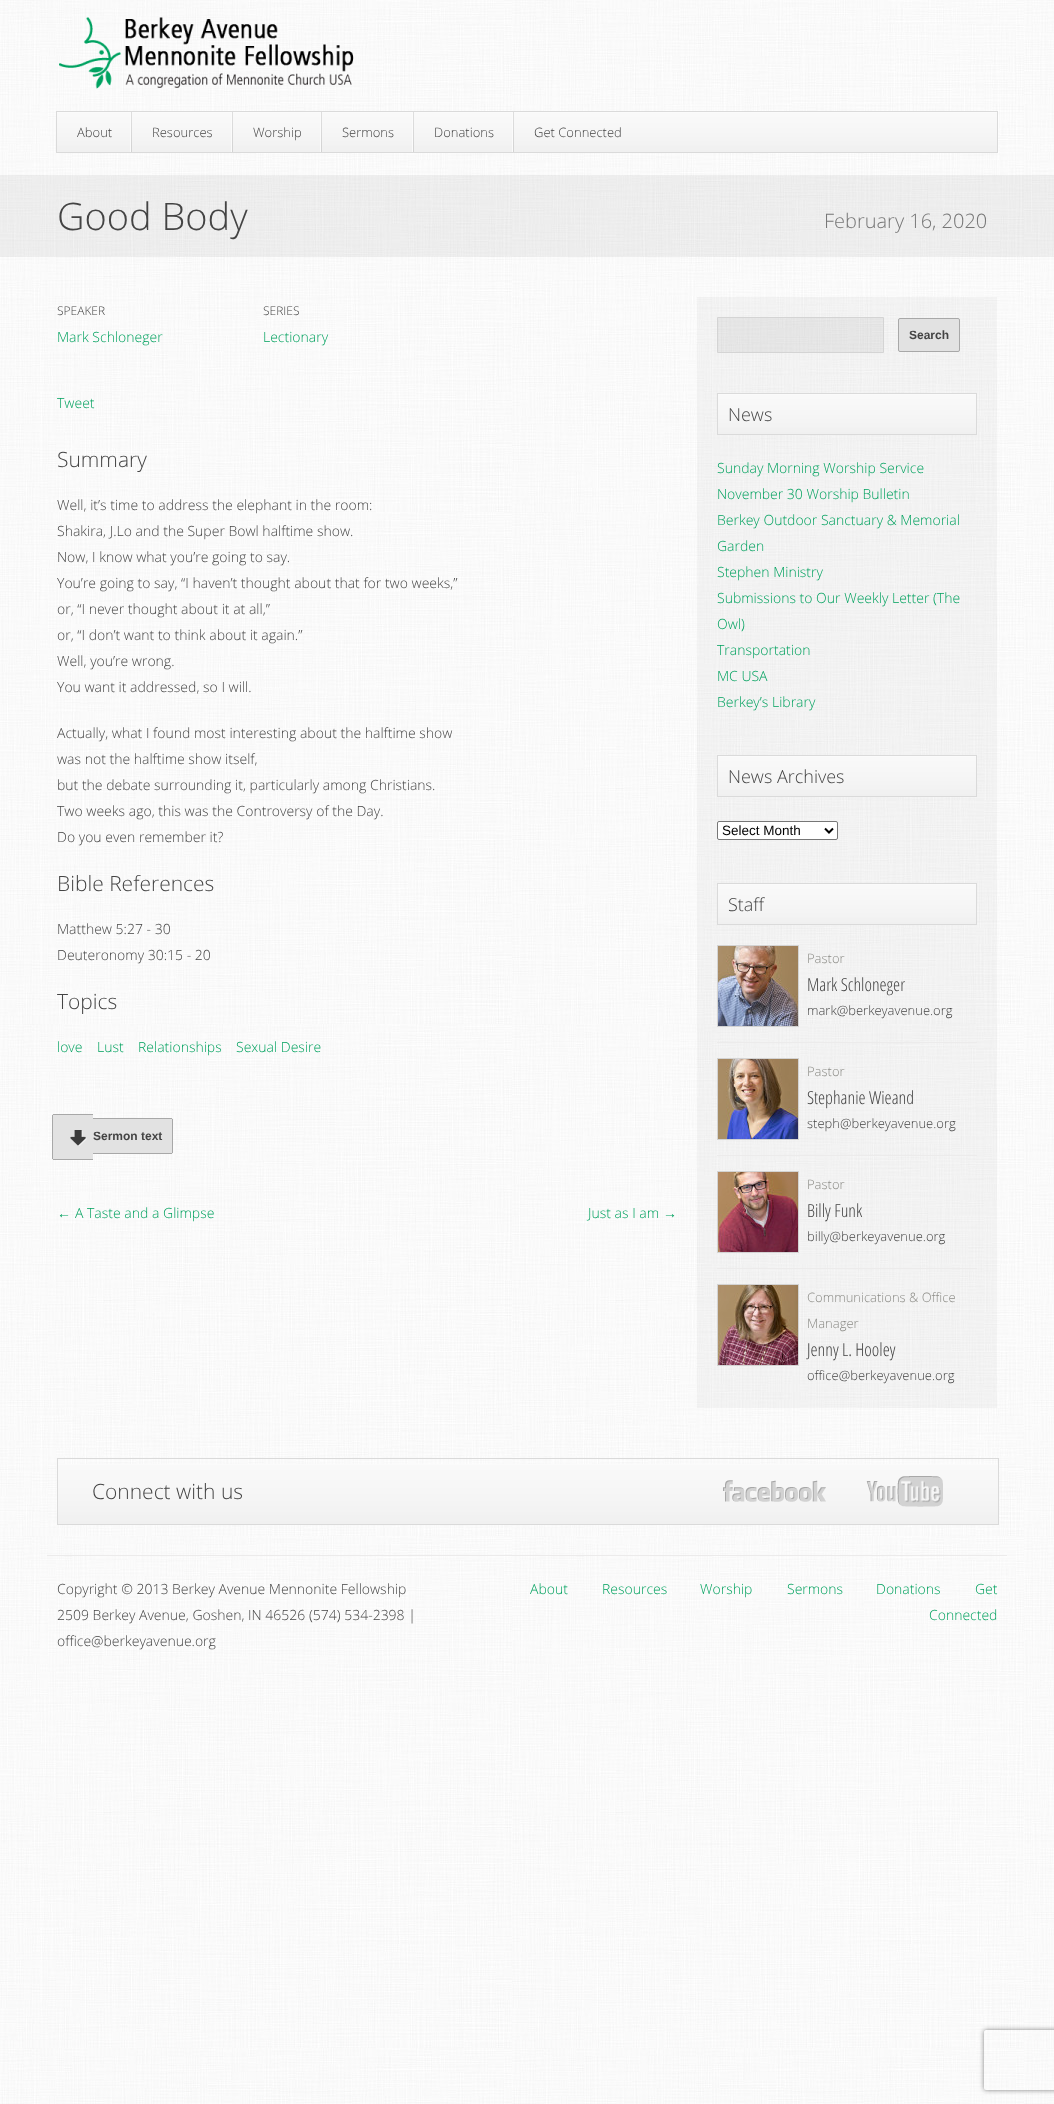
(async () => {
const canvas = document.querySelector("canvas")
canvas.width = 1054
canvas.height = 2104
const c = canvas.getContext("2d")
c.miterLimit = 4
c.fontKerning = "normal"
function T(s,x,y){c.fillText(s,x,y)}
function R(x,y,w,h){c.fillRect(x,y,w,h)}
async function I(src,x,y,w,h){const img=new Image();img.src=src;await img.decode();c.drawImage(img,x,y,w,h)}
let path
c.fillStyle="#fff"
R(0,0,1054,2104)
await I("1.png",0,0,1054,2104)
await I("2.png",59,17,295,72)
await I("3.png",57,112,940,40)
c.strokeStyle="#dadada"
c.strokeRect(56.5,111.5,941,41)
await I("4.png",130,112,2,40)
c.font="300 13px Open Sans"
c.fillStyle="#444"
T("About",77,137)
await I("4.png",231,112,2,40)
T("Resources",152,137)
await I("4.png",320,112,2,40)
T("Worship",253,137)
await I("4.png",412,112,2,40)
T("Sermons",342,137)
await I("4.png",512,112,2,40)
T("Donations",434,137)
T("Get Connected",534,137)
c.fillStyle="#0000000d"
R(0,175,1054,82)
c.font="300 38px Open Sans"
c.fillStyle="#444"
T("Good Body",57,230)
c.font="300 20px Open Sans"
c.fillStyle="#777"
T("February 16, 2020",824,228)
c.font="300 12px Open Sans"
c.fillStyle="#444"
T("SPEAKER",57,315)
c.font="300 14px Open Sans"
c.fillStyle="#00a15e"
T("Mark Schloneger",57,342)
c.font="300 12px Open Sans"
c.fillStyle="#444"
T("SERIES",263,315)
c.font="300 14px Open Sans"
c.fillStyle="#00a15e"
T("Lectionary",263,342)
T("Tweet",57,408)
c.font="300 21px Open Sans"
c.fillStyle="#444"
T("Summary",57,467)
c.font="300 14px Open Sans"
T("Well, it’s time to address the elephant in the room:",57,510)
T("Shakira, J.Lo and the Super Bowl halftime show.",57,536)
T("Now, I know what you’re going to say.",57,562)
T("You’re going to say, “I haven’t thought about that for two weeks,”",57,588)
T("or, “I never thought about it at all,”",57,614)
T("or, “I don’t want to think about it again.”",57,640)
T("Well, you’re wrong.",57,666)
T("You want it addressed, so I will.",57,692)
T("Actually, what I found most interesting about the halftime show",57,738)
T("was not the halftime show itself,",57,764)
T("but the debate surrounding it, particularly among Christians.",57,790)
T("Two weeks ago, this was the Controversy of the Day.",57,816)
T("Do you even remember it?",57,842)
c.font="300 21px Open Sans"
T("Bible References",57,891)
c.font="300 14px Open Sans"
T("Matthew 5:27 - 30",57,934)
T("Deuteronomy 30:15 - 20",57,960)
c.font="300 21px Open Sans"
T("Topics",57,1009)
c.font="300 14px Open Sans"
c.fillStyle="#00a15e"
T("love",57,1052)
T("Lust",97,1052)
T("Relationships",138,1052)
T("Sexual Desire",236,1052)
c.fillStyle="#e2e2e2"
c.beginPath()
c.roundRect(52,1114,41,46,[2,0,0,2])
c.fill()
await I("5.png",70,1130,17,16)
c.beginPath()
c.roundRect(93,1118,80,36,[0,2,2,0])
c.fill()
c.font="bold 12px Liberation Sans"
c.fillStyle="#444"
T("Sermon text",93,1140)
c.fillStyle="#a8a8a8"
R(53,1114,40,1)
R(53,1159,40,1)
R(52,1115,1,44)
R(93,1118,79,1)
R(172,1119,1,34)
R(93,1153,79,1)
c.font="14px Liberation Sans"
c.fillStyle="#00a15e"
T("←",57,1218)
c.font="300 14px Open Sans"
T("A Taste and a Glimpse",75,1218)
T("Just as I am",588,1218)
c.font="14px Liberation Sans"
T("→",663,1218)
c.fillStyle="#00000008"
R(697,297,300,1111)
c.fillStyle="#0000000d"
c.beginPath()
c.rect(717.5,317.5,166,35)
c.fill()
c.strokeStyle="#d4d4d4"
c.stroke()
c.fillStyle="#e2e2e2"
c.beginPath()
c.roundRect(898.5,318.5,61,33,1.5)
c.fill()
c.strokeStyle="#a8a8a8"
c.stroke()
c.font="bold 12px Liberation Sans"
c.fillStyle="#444"
T("Search",909,339)
await I("6.png",718,394,258,40)
c.strokeStyle="#dadada"
c.strokeRect(717.5,393.5,259,41)
c.font="300 18px Open Sans"
T("News",728,421)
c.font="300 14px Open Sans"
c.fillStyle="#00a15e"
T("Sunday Morning Worship Service",717,473)
T("November 30 Worship Bulletin",717,499)
T("Berkey Outdoor Sanctuary & Memorial",717,525)
T("Garden",717,551)
T("Stephen Ministry",717,577)
T("Submissions to Our Weekly Letter (The",717,603)
T("Owl)",717,629)
T("Transportation",717,655)
T("MC USA",717,681)
T("Berkey’s Library",717,707)
await I("6.png",718,756,258,40)
c.strokeRect(717.5,755.5,259,41)
c.font="300 18px Open Sans"
c.fillStyle="#444"
T("News Archives",728,783)
c.fillStyle="#fff"
c.beginPath()
c.roundRect(717.5,821.5,120,18,1.5)
c.fill()
c.strokeStyle="#767676"
c.stroke()
path = new Path2D("M825 828.5l4 4l4-4")
c.strokeStyle="#000"
c.lineWidth=2
c.stroke(path)
c.font="13.5px Liberation Sans"
c.fillStyle="#000"
T("Select Month",722,835)
await I("6.png",718,884,258,40)
c.strokeStyle="#dadada"
c.lineWidth=1
c.strokeRect(717.5,883.5,259,41)
c.font="300 18px Open Sans"
c.fillStyle="#444"
T("Staff",728,911)
c.fillStyle="#ecebeb"
R(717,1042,260,1)
c.strokeStyle="#d3d3d3"
c.strokeRect(717.5,945.5,81,81)
await I("7.png",718,946,80,80)
c.font="300 13px Open Sans"
c.fillStyle="#8b8b86"
T("Pastor",807,963)
c.font="300 18px 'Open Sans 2'"
c.fillStyle="#444"
T("Mark Schloneger",807,991)
c.font="300 13px Open Sans"
T("mark@berkeyavenue.org",807,1015)
c.fillStyle="#ecebeb"
R(717,1155,260,1)
c.strokeRect(717.5,1058.5,81,81)
await I("8.png",718,1059,80,80)
c.fillStyle="#8b8b86"
T("Pastor",807,1076)
c.font="300 18px 'Open Sans 2'"
c.fillStyle="#444"
T("Stephanie Wieand",807,1104)
c.font="300 13px Open Sans"
T("steph@berkeyavenue.org",807,1128)
c.fillStyle="#ecebeb"
R(717,1268,260,1)
c.strokeRect(717.5,1171.5,81,81)
await I("9.png",718,1172,80,80)
c.fillStyle="#8b8b86"
T("Pastor",807,1189)
c.font="300 18px 'Open Sans 2'"
c.fillStyle="#444"
T("Billy Funk",807,1217)
c.font="300 13px Open Sans"
T("billy@berkeyavenue.org",807,1241)
c.strokeRect(717.5,1284.5,81,81)
await I("10.png",718,1285,80,80)
c.fillStyle="#8b8b86"
T("Communications & Office",807,1302)
T("Manager",807,1328)
c.font="300 18px 'Open Sans 2'"
c.fillStyle="#444"
T("Jenny L. Hooley",807,1356)
c.font="300 13px Open Sans"
T("office@berkeyavenue.org",807,1380)
await I("11.png",58,1464,940,60)
c.strokeStyle="#dadada"
c.strokeRect(57.5,1458.5,941,66)
c.font="300 21px Open Sans"
T("Connect with us",92,1499)
await I("12.png",723,1480,103,22)
await I("13.png",866,1476,77,31)
c.fillStyle="#ecebeb"
R(47,1555,960,1)
c.font="300 14px Open Sans"
c.fillStyle="#444"
T("Copyright © 2013 Berkey Avenue Mennonite Fellowship",57,1594)
T("2509 Berkey Avenue, Goshen, IN 46526 (574) 534-2398 |",57,1620)
T("office@berkeyavenue.org",57,1646)
c.fillStyle="#00a15e"
T("About",530,1594)
T("Resources",602,1594)
T("Worship",700,1594)
T("Sermons",787,1594)
T("Donations",876,1594)
T("Get",975,1594)
T("Connected",929,1620)
c.save()
path = new Path2D("M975 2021h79v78h-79zm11 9h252c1 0 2 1 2 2v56c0 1-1 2-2 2h-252c-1 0-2-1-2-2v-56c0-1 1-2 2-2z")
c.clip(path,"evenodd")
c.fillStyle="#808080"
c.filter="blur(2.5px)"
c.beginPath()
c.roundRect(984,2030,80,60,2)
c.fill()
c.filter="none"
c.restore()
})()
